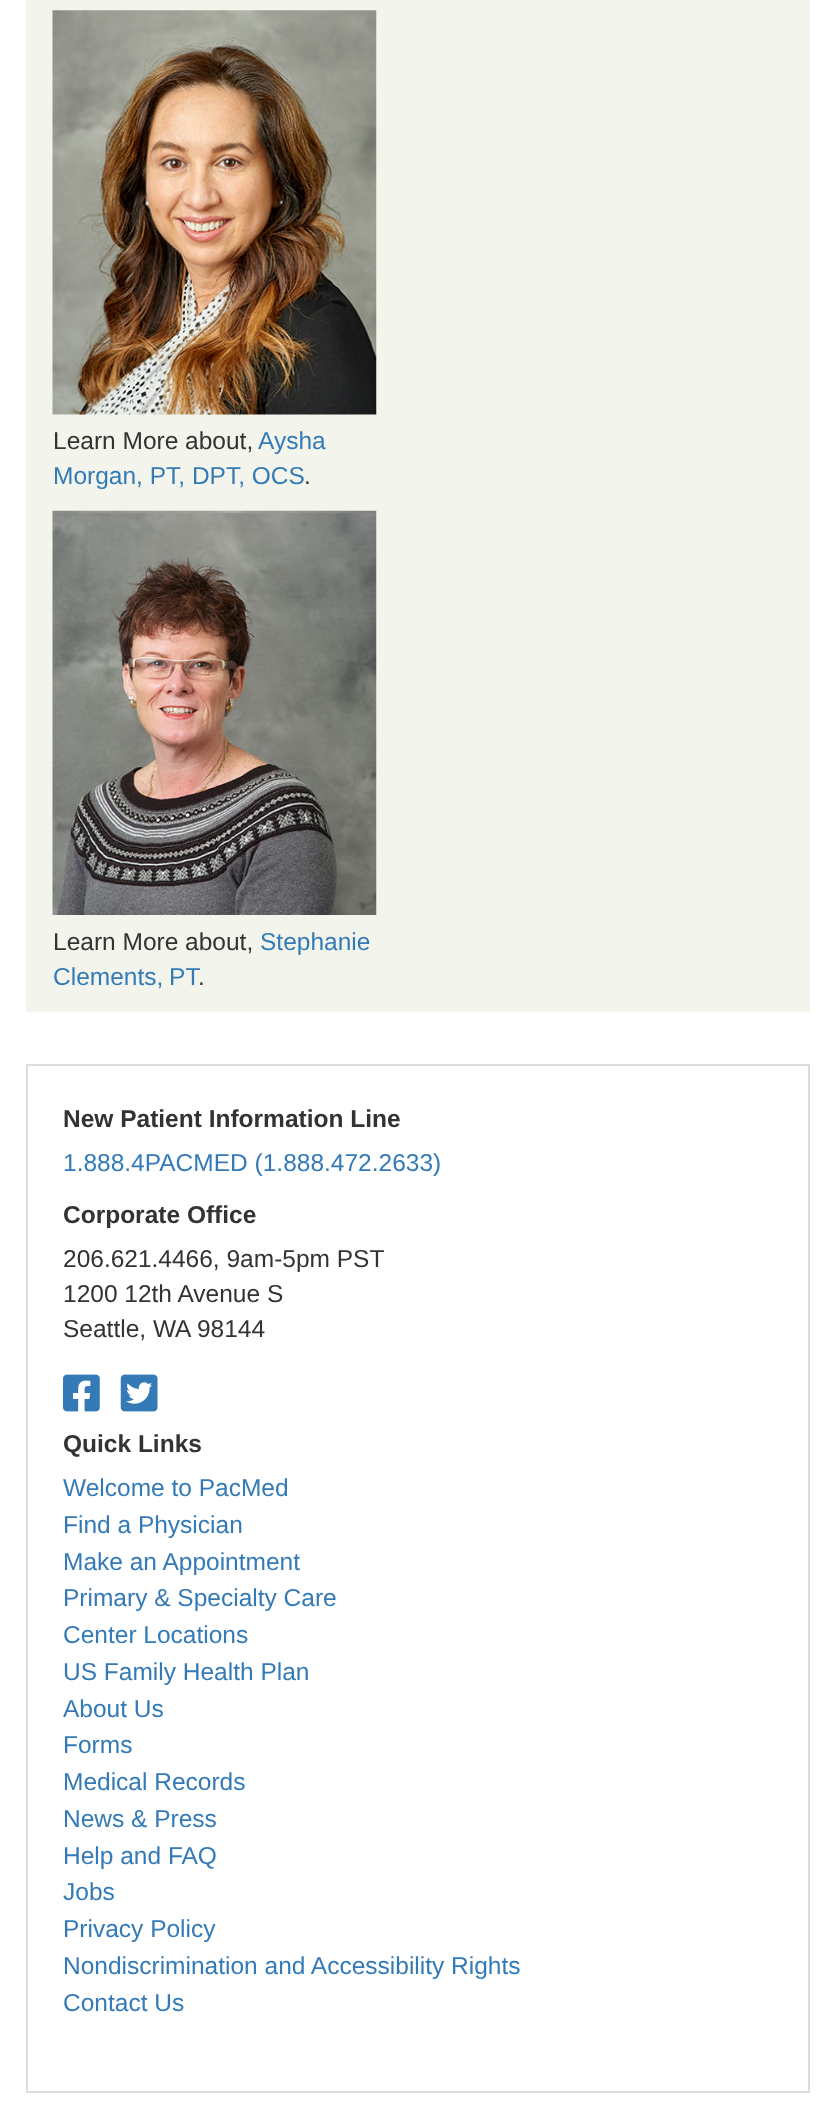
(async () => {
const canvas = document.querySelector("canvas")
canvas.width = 836
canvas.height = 2118
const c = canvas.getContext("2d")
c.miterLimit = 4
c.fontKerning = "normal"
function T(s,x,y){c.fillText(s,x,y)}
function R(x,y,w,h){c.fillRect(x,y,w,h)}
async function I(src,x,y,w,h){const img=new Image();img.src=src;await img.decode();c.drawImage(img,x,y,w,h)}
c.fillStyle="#fff"
R(0,0,836,2118)
c.fillStyle="#f3f5ec"
R(26,0,784,1012)
await I("1.png",52,10,325,405)
c.font="24.5px Liberation Sans"
c.fillStyle="#333"
T("Learn More about,",53,449)
c.fillStyle="#337ab7"
T("Aysha",258,449)
T("Morgan, PT, DPT, OCS",53,484)
c.fillStyle="#333"
T(".",304,484)
await I("2.png",52,510,325,405)
T("Learn More about,",53,950)
c.fillStyle="#337ab7"
T("Stephanie",260,950)
c.wordSpacing="-1px"
T("Clements, PT",53,985)
c.wordSpacing="0px"
c.fillStyle="#333"
T(".",198,985)
c.strokeStyle="#ddd"
c.lineWidth=2
c.strokeRect(27,1065,782,1027)
c.font="bold 24.5px Liberation Sans"
T("New Patient Information Line",63,1127)
c.font="24.5px Liberation Sans"
c.fillStyle="#337ab7"
T("1.888.4PACMED (1.888.472.2633)",63,1171)
c.font="bold 24.5px Liberation Sans"
c.fillStyle="#333"
T("Corporate Office",63,1223)
c.font="24.5px Liberation Sans"
T("206.621.4466, 9am-5pm PST",63,1267)
T("1200 12th Avenue S",63,1302)
T("Seattle, WA 98144",63,1337)
await I("3.png",63,1374,37,38)
await I("4.png",120,1374,38,38)
c.font="bold 24.5px Liberation Sans"
T("Quick Links",63,1452)
c.font="24.5px Liberation Sans"
c.fillStyle="#337ab7"
T("Welcome to PacMed",63,1496)
T("Find a Physician",63,1533)
T("Make an Appointment",63,1570)
T("Primary & Specialty Care",63,1606)
T("Center Locations",63,1643)
T("US Family Health Plan",63,1680)
T("About Us",63,1717)
T("Forms",63,1753)
T("Medical Records",63,1790)
T("News & Press",63,1827)
T("Help and FAQ",63,1864)
T("Jobs",63,1900)
T("Privacy Policy",63,1937)
T("Nondiscrimination and Accessibility Rights",63,1974)
T("Contact Us",63,2011)
})()
